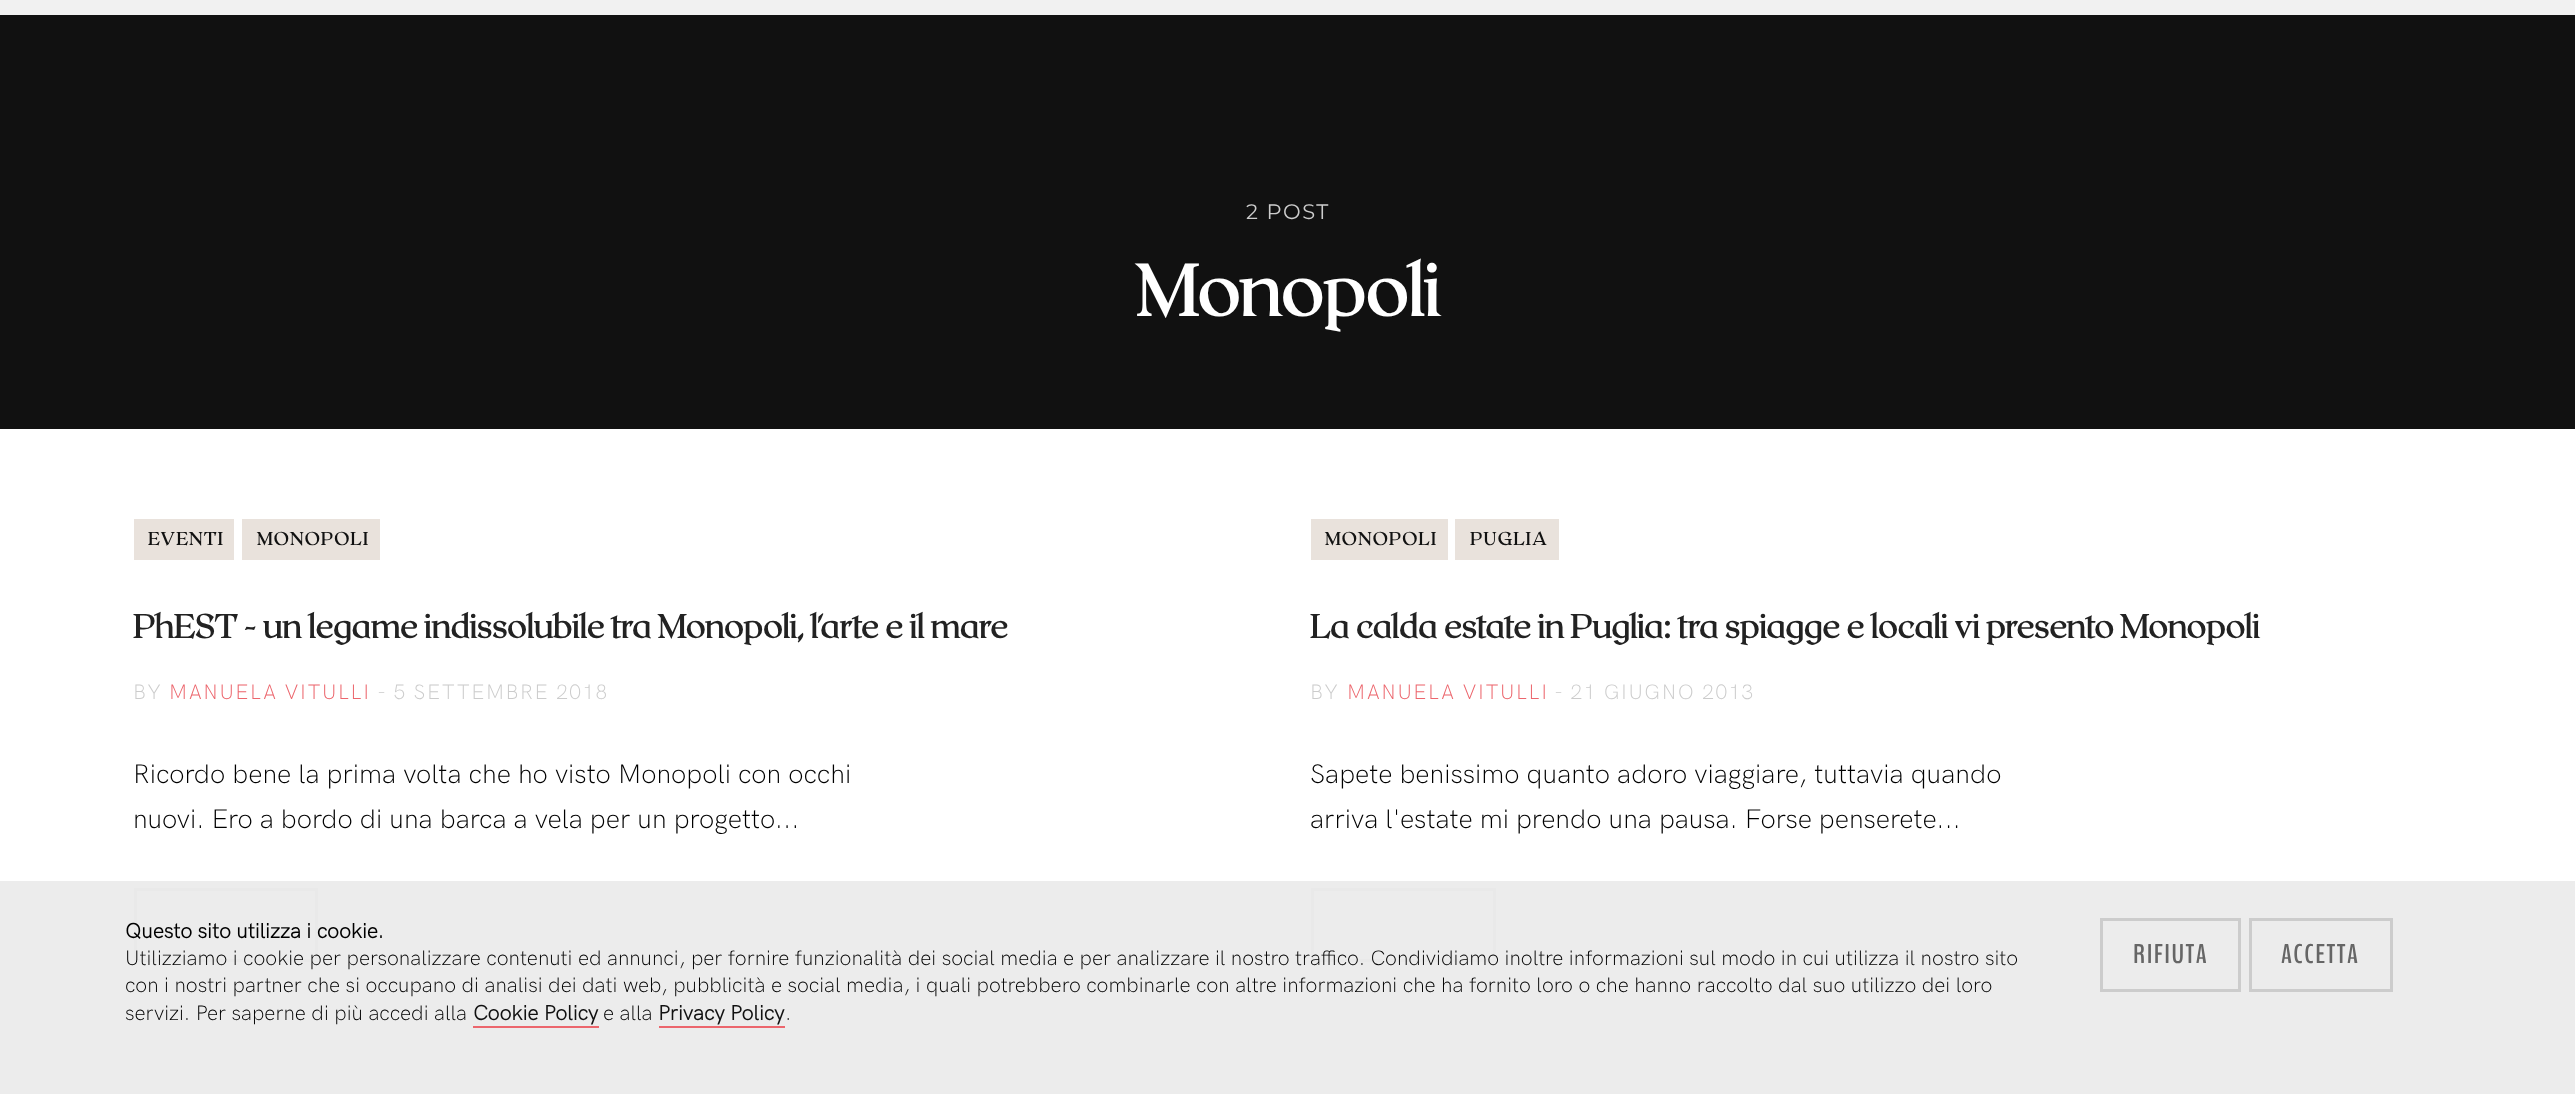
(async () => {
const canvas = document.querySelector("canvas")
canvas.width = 2575
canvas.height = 1094
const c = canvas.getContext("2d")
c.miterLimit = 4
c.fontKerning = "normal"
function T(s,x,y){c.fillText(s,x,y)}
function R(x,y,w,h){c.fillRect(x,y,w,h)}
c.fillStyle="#fff"
R(0,0,2575,1094)
c.fillStyle="#ececec"
R(0,881,2575,213)
c.fillStyle="#111"
R(0,15,2575,414)
c.letterSpacing="1.5px"
c.font="21px Montserrat"
c.fillStyle="#ccc"
T("2 POST",1246,219)
c.letterSpacing="0px"
c.font="bold 72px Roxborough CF"
c.fillStyle="#fff"
T("Monopoli",1136,316)
c.fillStyle="#f1f1f1"
R(0,0,2575,15)
c.fillStyle="#e9e2dc"
R(134,519,100,41)
c.letterSpacing="1.5px"
c.font="bold 18px Roxborough CF"
c.fillStyle="#111"
T("EVENTI",148,545)
c.fillStyle="#e9e2dc"
R(242,519,138,41)
c.fillStyle="#111"
T("MONOPOLI",257,545)
c.letterSpacing="0px"
c.font="bold 33px Roxborough CF"
c.fillStyle="#222"
T("PhEST - un legame indissolubile tra Monopoli, l'arte e il mare",133,638)
c.letterSpacing="1.5px"
c.font="300 21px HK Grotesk"
c.fillStyle="#ccc"
T("BY",133,699)
c.fillStyle="#ec666d"
T("MANUELA VITULLI",169,699)
c.fillStyle="#ccc"
T("- 5 SETTEMBRE 2018",377,699)
c.letterSpacing="0px"
c.font="300 27px HK Grotesk"
c.fillStyle="#000"
T("Ricordo bene la prima volta che ho visto Monopoli con occhi",133,783)
T("nuovi. Ero a bordo di una barca a vela per un progetto...",133,828)
c.strokeStyle="#e9e9e9"
c.lineWidth=3
c.strokeRect(135.5,889.5,181,71)
c.fillStyle="#e9e2dc"
R(1311,519,137,41)
c.letterSpacing="1.5px"
c.font="bold 18px Roxborough CF"
c.fillStyle="#111"
T("MONOPOLI",1325,545)
c.fillStyle="#e9e2dc"
R(1455,519,104,41)
c.fillStyle="#111"
T("PUGLIA",1470,545)
c.letterSpacing="0px"
c.font="bold 33px Roxborough CF"
c.fillStyle="#222"
T("La calda estate in Puglia: tra spiagge e locali vi presento Monopoli",1310,638)
c.letterSpacing="1.5px"
c.font="300 21px HK Grotesk"
c.fillStyle="#ccc"
T("BY",1310,699)
c.fillStyle="#ec666d"
T("MANUELA VITULLI",1347,699)
c.fillStyle="#ccc"
T("- 21 GIUGNO 2013",1554,699)
c.letterSpacing="0px"
c.font="300 27px HK Grotesk"
c.fillStyle="#000"
T("Sapete benissimo quanto adoro viaggiare, tuttavia quando",1310,783)
T("arriva l'estate mi prendo una pausa. Forse penserete...",1310,828)
c.strokeRect(1312.5,889.5,182,71)
c.font="bold 21px HK Grotesk"
T("Questo sito utilizza i cookie.",125,938)
c.font="300 21px HK Grotesk"
T("Utilizziamo i cookie per personalizzare contenuti ed annunci, per fornire funzionalità dei social media e per analizzare il nostro traffico. Condividiamo inoltre informazioni sul modo in cui utilizza il nostro sito",125,965)
T("con i nostri partner che si occupano di analisi dei dati web, pubblicità e social media, i quali potrebbero combinarle con altre informazioni che ha fornito loro o che hanno raccolto dal suo utilizzo dei loro",125,992)
T("servizi. Per saperne di più accedi alla",125,1020)
c.font="bold 21px HK Grotesk"
c.fillStyle="#111"
T("Cookie Policy",473,1020)
c.fillStyle="#ec666d"
R(473,1026,126,2)
c.font="300 21px HK Grotesk"
c.fillStyle="#000"
T("e alla",603,1020)
c.font="bold 21px HK Grotesk"
c.fillStyle="#111"
T("Privacy Policy",658,1020)
c.fillStyle="#ec666d"
R(659,1026,126,2)
c.font="300 21px HK Grotesk"
c.fillStyle="#000"
T(".",785,1020)
c.strokeStyle="#ccc"
c.strokeRect(2101.5,919.5,138,71)
c.letterSpacing="1.5px"
c.font="bold 27px BenchNine"
c.fillStyle="#666"
T("RIFIUTA",2133,963)
c.strokeRect(2250.5,919.5,141,71)
T("ACCETTA",2281,963)
})()
